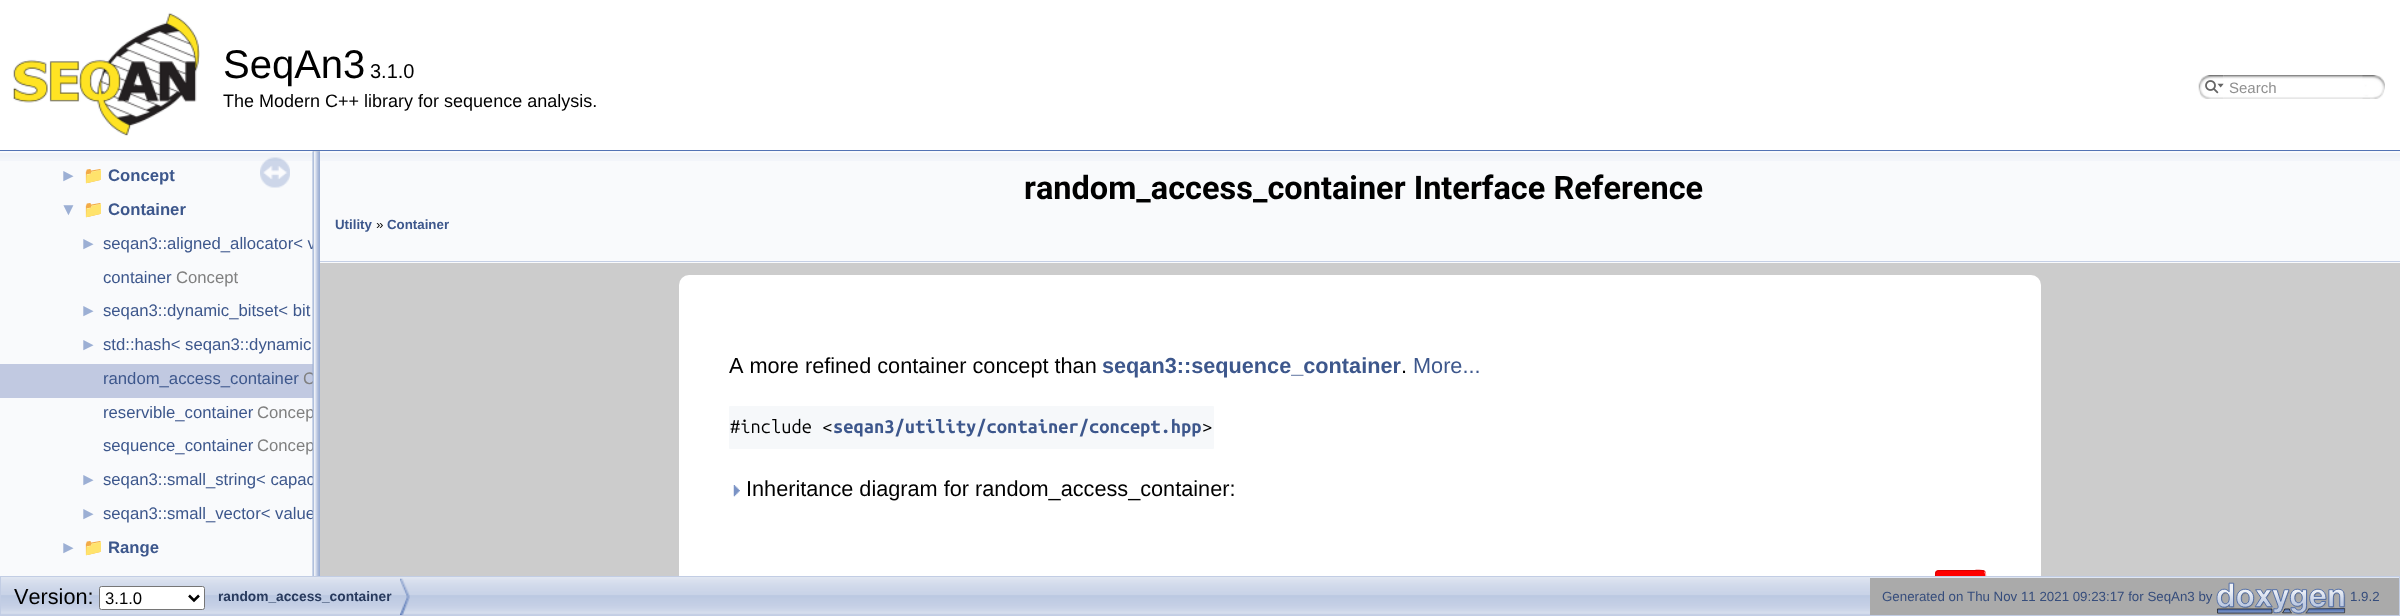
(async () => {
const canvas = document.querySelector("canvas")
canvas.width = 2400
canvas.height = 616
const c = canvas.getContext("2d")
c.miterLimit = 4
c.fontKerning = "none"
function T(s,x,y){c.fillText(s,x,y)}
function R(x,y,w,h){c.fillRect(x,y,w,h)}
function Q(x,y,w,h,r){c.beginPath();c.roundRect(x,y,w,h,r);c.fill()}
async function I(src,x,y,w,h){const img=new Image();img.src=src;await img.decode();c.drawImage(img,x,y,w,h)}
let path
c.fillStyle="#ccc"
R(0,0,2400,616)
c.fillStyle="#fff"
R(0,0,2400,150)
c.fillStyle="#5373b4"
R(0,150,2400,1)
await I("1.png",13,12,187,124)
c.font="40px Liberation Sans"
c.fillStyle="#000"
T("SeqAn3",223,78)
c.font="20px Liberation Sans"
T("3.1.0",370,78)
c.font="18px Liberation Sans"
T("The Modern C++ library for sequence analysis.",223,107)
await I("2.png",2198,75,26,24)
await I("3.png",2205,80,19,14)
await I("4.png",2223,75,147,24)
c.font="15px Liberation Sans"
c.fillStyle="#909090"
T("Search",2229,93)
await I("5.png",2362,75,23,24)
c.fillStyle="#f9fafc"
R(0,151,313,425)
await I("6.png",0,153,313,8)
await I("7.png",260,157,30,31)
c.font="17px Liberation Sans"
c.fillStyle="#9cafd4"
T("►",60,181)
c.font="bold 16.7px Noto Color Emoji"
c.fillStyle="#3d578c"
T("📁",83,181)
c.font="bold 16.7px Liberation Sans"
T("Concept",108,181)
c.font="17px Liberation Sans"
c.fillStyle="#9cafd4"
T("▼",60,215)
c.font="bold 16.7px Noto Color Emoji"
c.fillStyle="#3d578c"
T("📁",83,215)
c.font="bold 16.7px Liberation Sans"
T("Container",108,215)
c.font="17px Liberation Sans"
c.fillStyle="#9cafd4"
T("►",80,249)
c.font="16.7px Liberation Sans"
c.fillStyle="#3d578c"
T("seqan3::aligned_allocator< v",103,249)
T("container",103,283)
c.fillStyle="#808080"
T("Concept",176,283)
c.font="17px Liberation Sans"
c.fillStyle="#9cafd4"
T("►",80,316)
c.font="16.7px Liberation Sans"
c.fillStyle="#3d578c"
T("seqan3::dynamic_bitset< bit",103,316)
c.font="17px Liberation Sans"
c.fillStyle="#9cafd4"
T("►",80,350)
c.font="16.7px Liberation Sans"
c.fillStyle="#3d578c"
T("std::hash< seqan3::dynamic",103,350)
c.fillStyle="#c1c9e1"
R(0,364,313,34)
c.fillStyle="#3d578c"
T("random_access_container",103,384)
c.fillStyle="#808080"
T("C",303,384)
c.fillStyle="#3d578c"
T("reservible_container",103,418)
c.fillStyle="#808080"
T("Concep",257,418)
c.fillStyle="#3d578c"
T("sequence_container",103,451)
c.fillStyle="#808080"
T("Concep",257,451)
c.font="17px Liberation Sans"
c.fillStyle="#9cafd4"
T("►",80,485)
c.font="16.7px Liberation Sans"
c.fillStyle="#3d578c"
T("seqan3::small_string< capac",103,485)
c.font="17px Liberation Sans"
c.fillStyle="#9cafd4"
T("►",80,519)
c.font="16.7px Liberation Sans"
c.fillStyle="#3d578c"
T("seqan3::small_vector< value",103,519)
c.font="17px Liberation Sans"
c.fillStyle="#9cafd4"
T("►",60,553)
c.font="bold 16.7px Noto Color Emoji"
c.fillStyle="#3d578c"
T("📁",83,553)
c.font="bold 16.7px Liberation Sans"
T("Range",108,553)
await I("8.png",312,151,8,425)
c.fillStyle="#f9fafc"
R(320,151,2080,112)
await I("9.png",320,153,2080,8)
c.fillStyle="#c4cfe5"
R(320,261,2080,1)
c.font="bold 32.5px Roboto"
c.fillStyle="#000"
T("random_access_container Interface Reference",1024,199)
c.font="bold 13.3px Liberation Sans"
c.fillStyle="#3d578c"
T("Utility",335,229)
c.font="13.3px Liberation Sans"
c.fillStyle="#000"
T("»",376,229)
c.font="bold 13.3px Liberation Sans"
c.fillStyle="#3d578c"
T("Container",387,229)
c.fillStyle="#fff"
c.beginPath()
c.roundRect(679,275,1362,301,[10,10,0,0])
c.fill()
c.font="21.7px Liberation Sans"
c.fillStyle="#000"
T("A more refined container concept than",729,373)
c.font="bold 21.7px Liberation Sans"
c.fillStyle="#3d578c"
T("seqan3::sequence_container",1102,373)
c.font="21.7px Liberation Sans"
c.fillStyle="#000"
T(".",1401,373)
c.fillStyle="#3d578c"
T("More...",1413,373)
c.fillStyle="#f6f8fa"
Q(729,406,485,43,1)
c.font="18.3px Ubuntu Mono"
c.fillStyle="#000"
T("#include <",730,433)
c.font="bold 18.3px Ubuntu Mono"
c.fillStyle="#3d578c"
T("seqan3/utility/container/concept.hpp",833,433)
c.font="18.3px Ubuntu Mono"
c.fillStyle="#000"
T(">",1202,433)
await I("10.png",733,485,7,12)
c.font="21.7px Liberation Sans"
T("Inheritance diagram for random_access_container:",746,496)
c.fillStyle="#f00"
c.beginPath()
c.roundRect(1935,570,51,6,[4,4,0,0])
c.fill()
path = new Path2D("M1984.5 571.5c2 2 1 7 1 8.5v25c0 10.5 .5 9.5-10.5 9.5h-29c-1 0-7.5 1-9.5-1")
c.strokeStyle="#f99"
c.lineWidth=1.2
c.stroke(path)
path = new Path2D("M1936.5 613.5c-2-2-1-7-1-8.5v-25c0-10.5-.5-9.5 10.5-9.5h29c1 0 7.5-1 9.5 1")
c.strokeStyle="#da0000"
c.stroke(path)
await I("11.png",1,577,2398,38)
c.strokeStyle="#c2cde4"
c.lineWidth=1
c.strokeRect(.5,576.5,2399,39)
c.fillStyle="#000"
T("Version:",14,604)
c.fillStyle="#fff"
c.beginPath()
c.roundRect(99.5,586.5,105,23,2)
c.fill()
c.strokeStyle="#767676"
c.stroke()
path = new Path2D("M189 595.5l5 5l5-5")
c.strokeStyle="#000"
c.lineWidth=2.5
c.stroke(path)
c.font="16.7px Liberation Sans"
c.fillStyle="#000"
T("3.1.0",105,604)
await I("12.png",400,578,10,37)
c.font="bold 13.75px Liberation Sans"
c.fillStyle="#283a5d"
T("random_access_container",218,601)
c.fillStyle="#aaa"
R(1870,578,529,37)
c.font="13.3px Liberation Sans"
c.fillStyle="#364d7c"
T("Generated on Thu Nov 11 2021 09:23:17 for SeqAn3 by",1882,601)
await I("13.png",2216,582,130,33)
T("1.9.2",2350,601)
})()
